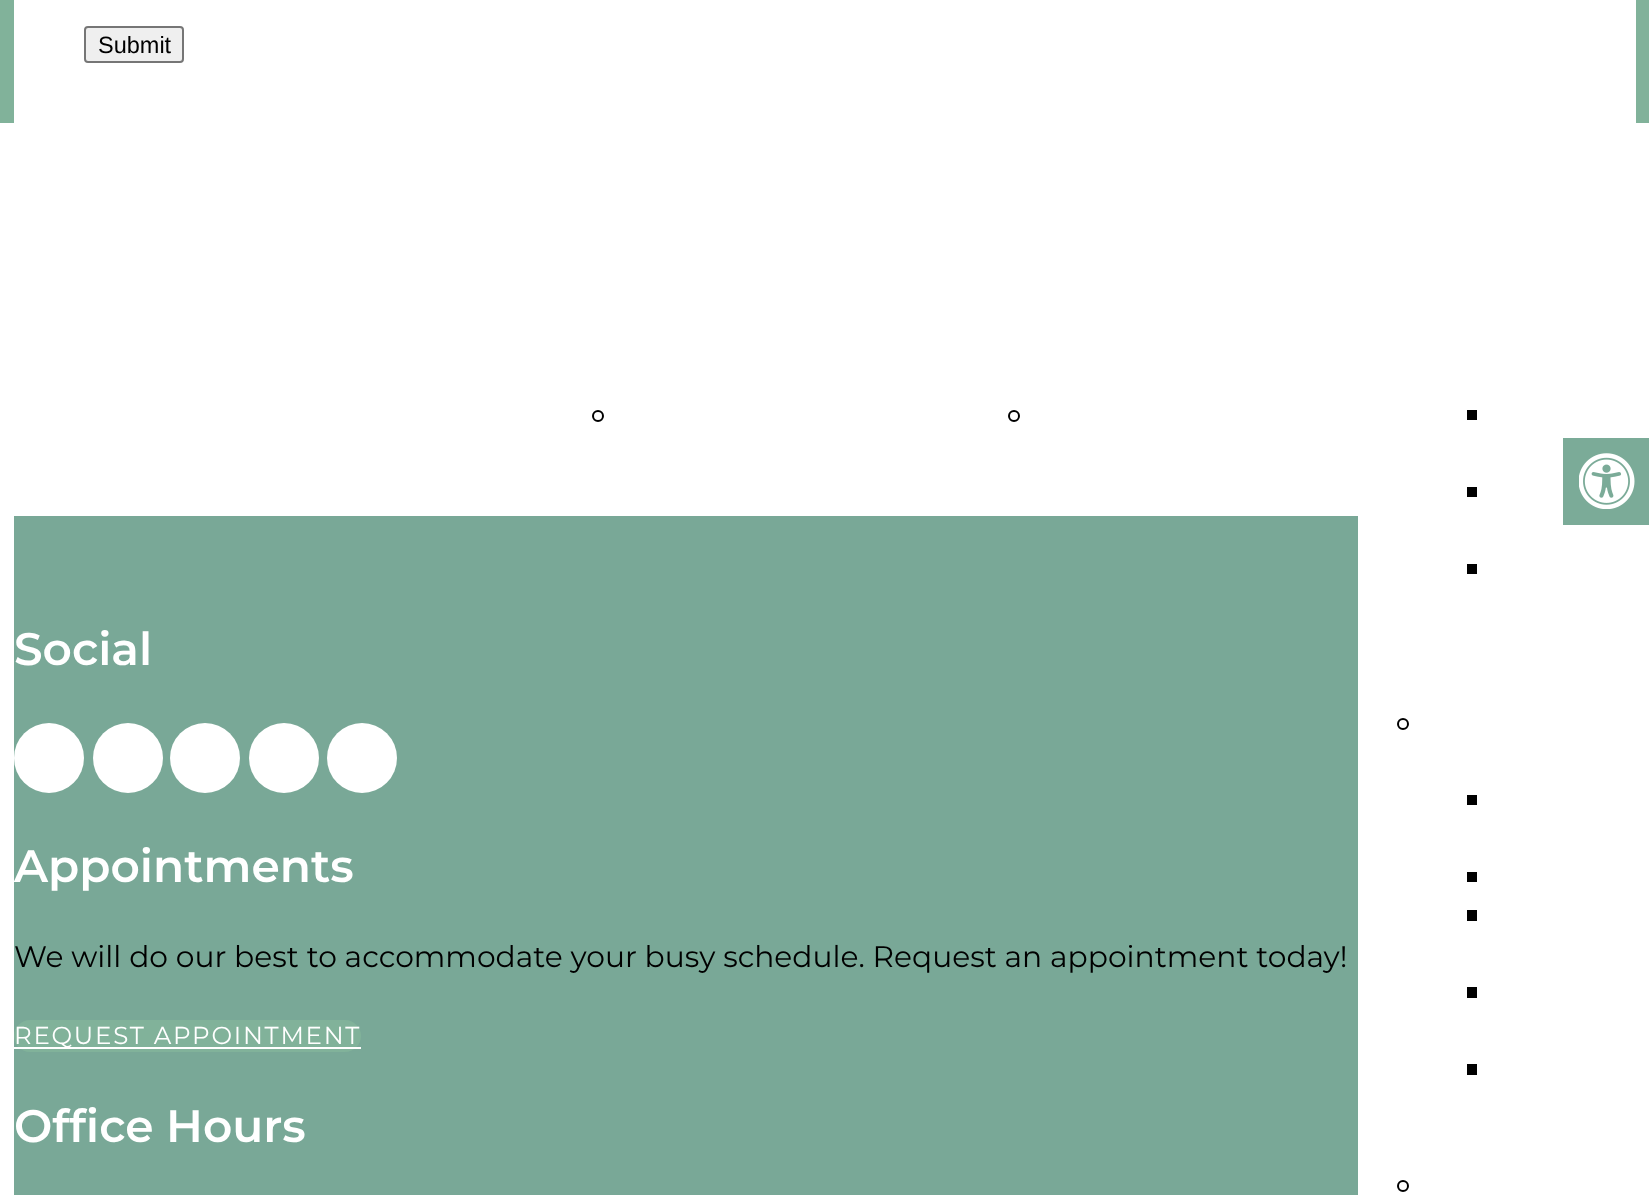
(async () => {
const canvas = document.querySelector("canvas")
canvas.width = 1649
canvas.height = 1195
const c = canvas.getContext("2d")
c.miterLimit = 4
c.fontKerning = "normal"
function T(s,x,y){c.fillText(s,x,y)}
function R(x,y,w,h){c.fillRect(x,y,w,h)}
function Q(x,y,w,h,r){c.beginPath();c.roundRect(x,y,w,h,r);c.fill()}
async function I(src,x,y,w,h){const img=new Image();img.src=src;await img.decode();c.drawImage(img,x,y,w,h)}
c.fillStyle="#fff"
R(0,0,1649,1195)
c.fillStyle="#81b29a"
R(0,0,1649,123)
c.beginPath()
c.arc(598,416,5,0,7)
c.strokeStyle="#000"
c.lineWidth=2
c.stroke()
c.beginPath()
c.arc(1014,416,5,0,7)
c.stroke()
c.fillStyle="#000"
R(1467,410,10,10)
R(1467,487,10,10)
R(1467,564,10,10)
c.beginPath()
c.arc(1403,724,5,0,7)
c.stroke()
R(1467,795,10,10)
R(1467,872,10,10)
R(1467,910,10,11)
R(1467,987,10,11)
R(1467,1064,10,11)
c.beginPath()
c.arc(1403,1186,5,0,7)
c.stroke()
c.fillStyle="#fff"
R(14,0,1622,123)
c.fillStyle="#efefef"
c.beginPath()
c.roundRect(85,27,98,35,3)
c.fill()
c.strokeStyle="#767676"
c.stroke()
c.font="23.5px Liberation Sans"
c.fillStyle="#000"
T("Submit",98,53)
c.fillStyle="#79a897"
R(14,516,1344,679)
c.font="600 45.5px Montserrat"
c.fillStyle="#fff"
T("Social",14,665)
c.beginPath()
c.arc(49,758,35,0,7)
c.fill()
c.beginPath()
c.arc(128,758,35,0,7)
c.fill()
c.beginPath()
c.arc(205,758,35,0,7)
c.fill()
c.beginPath()
c.arc(284,758,35,0,7)
c.fill()
c.beginPath()
c.arc(362,758,35,0,7)
c.fill()
T("Appointments",14,882)
c.font="29.75px Montserrat"
c.fillStyle="#000"
T("We will do our best to accommodate your busy schedule. Request an appointment today!",14,967)
c.fillStyle="#81b29a"
Q(14,1020,347,32,16)
c.fillStyle="#fff"
R(14,1047,347,2)
c.letterSpacing="1.75px"
c.font="24.5px Montserrat"
T("REQUEST APPOINTMENT",14,1044)
c.letterSpacing="0px"
c.font="600 45.5px Montserrat"
T("Office Hours",14,1142)
c.fillStyle="#7bab98"
R(1563,438,86,87)
await I("1.png",1579,453,56,56)
})()
